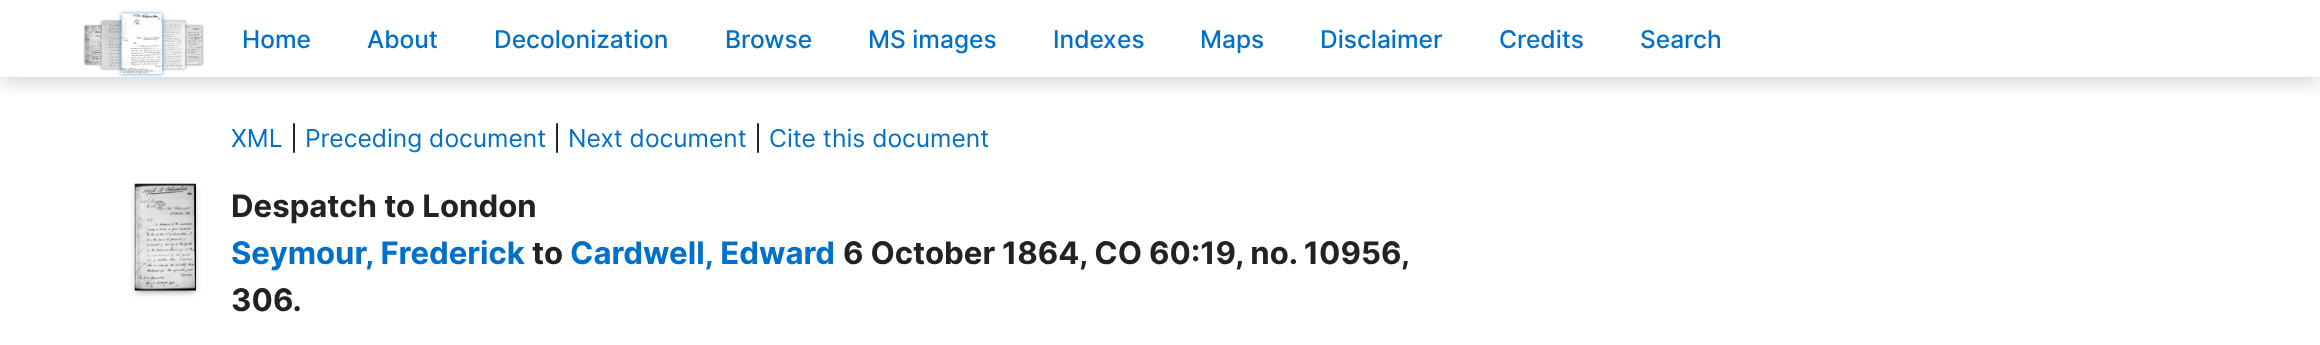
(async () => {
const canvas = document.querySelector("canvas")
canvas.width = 2320
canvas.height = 345
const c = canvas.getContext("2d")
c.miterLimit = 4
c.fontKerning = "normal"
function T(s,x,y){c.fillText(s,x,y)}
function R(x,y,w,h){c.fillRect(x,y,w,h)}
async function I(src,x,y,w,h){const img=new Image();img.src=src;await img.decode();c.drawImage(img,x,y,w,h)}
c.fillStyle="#fff"
R(0,0,2320,345)
c.save()
c.beginPath()
c.rect(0,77,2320,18)
c.clip()
c.fillStyle="#00000040"
c.filter="blur(13px)"
c.beginPath()
c.rect(0,0,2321,77)
c.fill()
c.filter="none"
c.restore()
await I("1.png",83,10,121,67)
c.font="500 24.5px Inter"
c.fillStyle="#0070c9"
T("Home",242,48)
T("About",367,48)
T("Decolonization",494,48)
T("Browse",725,48)
T("MS images",868,48)
T("Inde",1053,48)
T("x",1103,48)
T("es",1117,48)
T("Maps",1200,48)
T("Disclaimer",1320,48)
T("Credits",1499,48)
T("Search",1640,48)
c.font="24.6px Inter"
T("XML",231,147)
c.fillStyle="#000"
T("|",290,147)
c.fillStyle="#0070c9"
T("Preceding document",305,147)
c.fillStyle="#000"
T("|",553,147)
c.fillStyle="#0070c9"
T("Next document",568,147)
c.fillStyle="#000"
T("|",754,147)
c.fillStyle="#0070c9"
T("Cite this document",769,147)
c.fillStyle="#0000004d"
c.filter="blur(2.5px)"
c.beginPath()
c.rect(137,187,57,104)
c.fill()
c.filter="none"
c.fillStyle="#32325d40"
c.filter="blur(4.5px)"
c.beginPath()
c.rect(137,189,57,103)
c.fill()
c.filter="none"
await I("2.png",134,183,62,108)
c.font="bold 31.1px Inter"
c.fillStyle="#222"
T("Despatch to London",231,217)
c.fillStyle="#0070c9"
T("Seymour",231,264)
T(", Frederick",365,264)
c.fillStyle="#222"
T("to",532,264)
c.fillStyle="#0070c9"
T("Cardwell, Edward",570,264)
c.wordSpacing="-0.25px"
c.fillStyle="#222"
T("6 October 1864, CO 60:19, no. 10956,",843,264)
c.wordSpacing="0px"
T("306.",231,311)
})()
